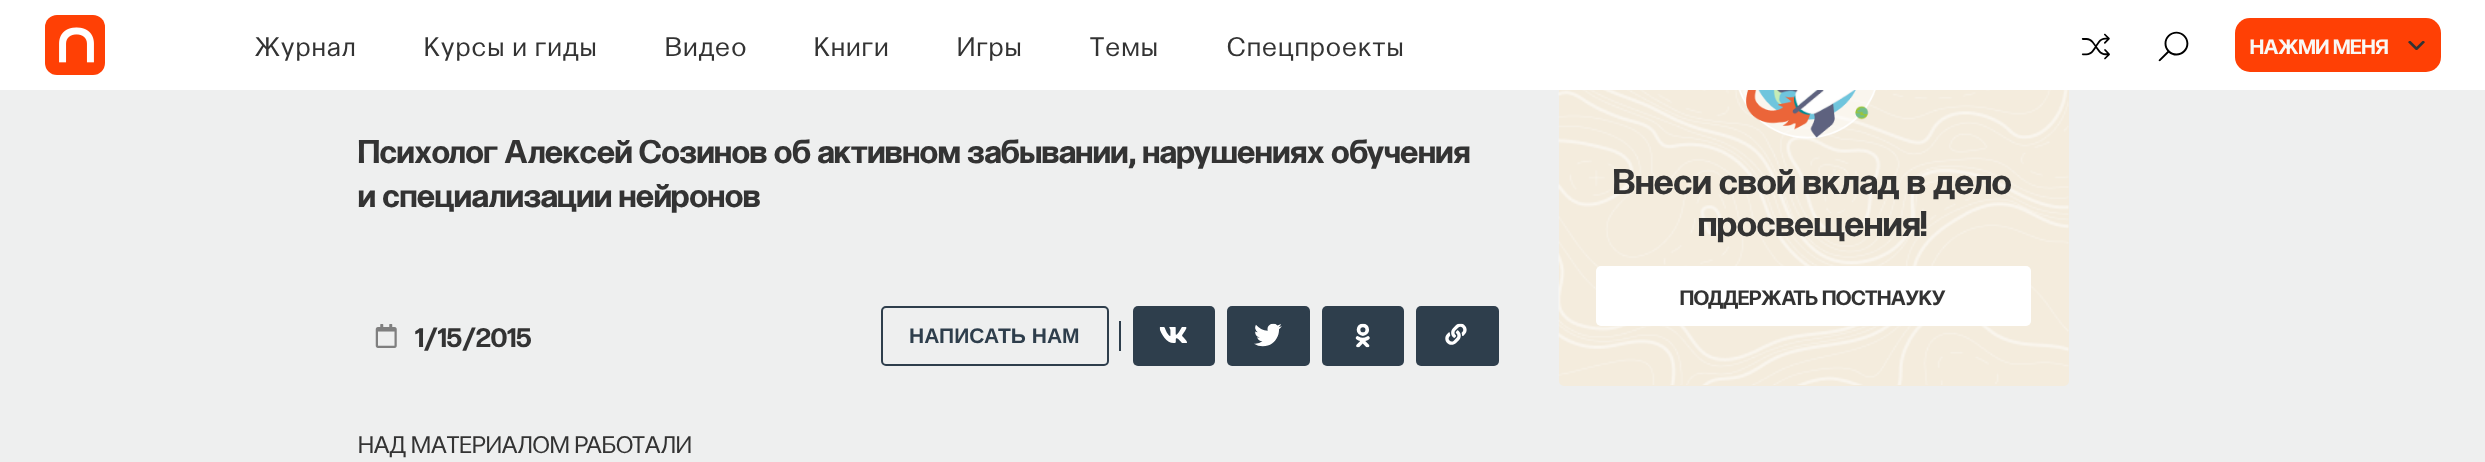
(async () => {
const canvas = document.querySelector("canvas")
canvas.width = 2485
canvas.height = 462
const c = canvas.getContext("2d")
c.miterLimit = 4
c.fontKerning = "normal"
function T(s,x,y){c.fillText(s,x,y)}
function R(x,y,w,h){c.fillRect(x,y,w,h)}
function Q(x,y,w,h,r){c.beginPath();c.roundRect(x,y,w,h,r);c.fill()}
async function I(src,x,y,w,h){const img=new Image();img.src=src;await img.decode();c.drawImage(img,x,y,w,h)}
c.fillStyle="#eeefef"
R(0,0,2485,462)
c.fillStyle="#f4ecdd"
Q(1559,-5,510,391,5)
c.fillStyle="#fff"
R(0,0,2485,90)
c.fillStyle="#ff4005"
Q(45,15,60,60,12)
await I("1.png",59,27,35,36)
c.letterSpacing="1.4px"
c.font="27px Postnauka"
c.fillStyle="#333"
T("Журнал",255,56)
T("Курсы и гиды",424,56)
T("Видео",665,56)
T("Книги",814,56)
T("Игры",957,56)
T("Темы",1090,56)
T("Спецпроекты",1227,56)
await I("2.png",2081,33,29,27)
await I("3.png",2158,31,31,31)
c.fillStyle="#ff4005"
Q(2235,18,206,54,15)
c.letterSpacing="0px"
c.font="bold 21px Postnauka"
c.fillStyle="#f9f8f5"
T("НАЖМИ МЕНЯ",2250,54)
await I("4.png",2408,41,17,9)
c.font="bold 33px Postnauka"
c.fillStyle="#333"
T("Психолог Алексей Созинов об активном забывании, нарушениях обучения",358,163)
T("и специализации нейронов",358,207)
await I("5.png",375,324,22,24)
c.font="bold 27px Postnauka"
T("1/15/2015",415,347)
c.beginPath()
c.roundRect(882,307,226,58,4)
c.strokeStyle="#2e3e4c"
c.lineWidth=2
c.stroke()
c.font="bold 21px Liberation Sans"
c.fillStyle="#2e3e4c"
T("НАПИСАТЬ НАМ",909,343)
R(1119,321,2,30)
Q(1133,306,82,60,5)
await I("6.png",1159,327,28,16)
Q(1227,306,83,60,5)
await I("7.png",1254,323,28,24)
Q(1322,306,82,60,5)
await I("8.png",1355,323,15,25)
Q(1416,306,83,60,5)
await I("9.png",1445,323,22,22)
c.font="24px Postnauka"
c.fillStyle="#333"
T("НАД МАТЕРИАЛОМ РАБОТАЛИ",358,453)
await I("10.png",1558,90,511,295)
await I("11.png",1738,90,138,49)
c.font="bold 36px Postnauka"
T("Внеси свой вклад в дело",1613,194)
T("просвещения!",1698,236)
c.fillStyle="#fff"
Q(1596,266,435,60,5)
c.font="bold 21px Postnauka"
c.fillStyle="#333"
T("ПОДДЕРЖАТЬ ПОСТНАУКУ",1680,305)
})()
